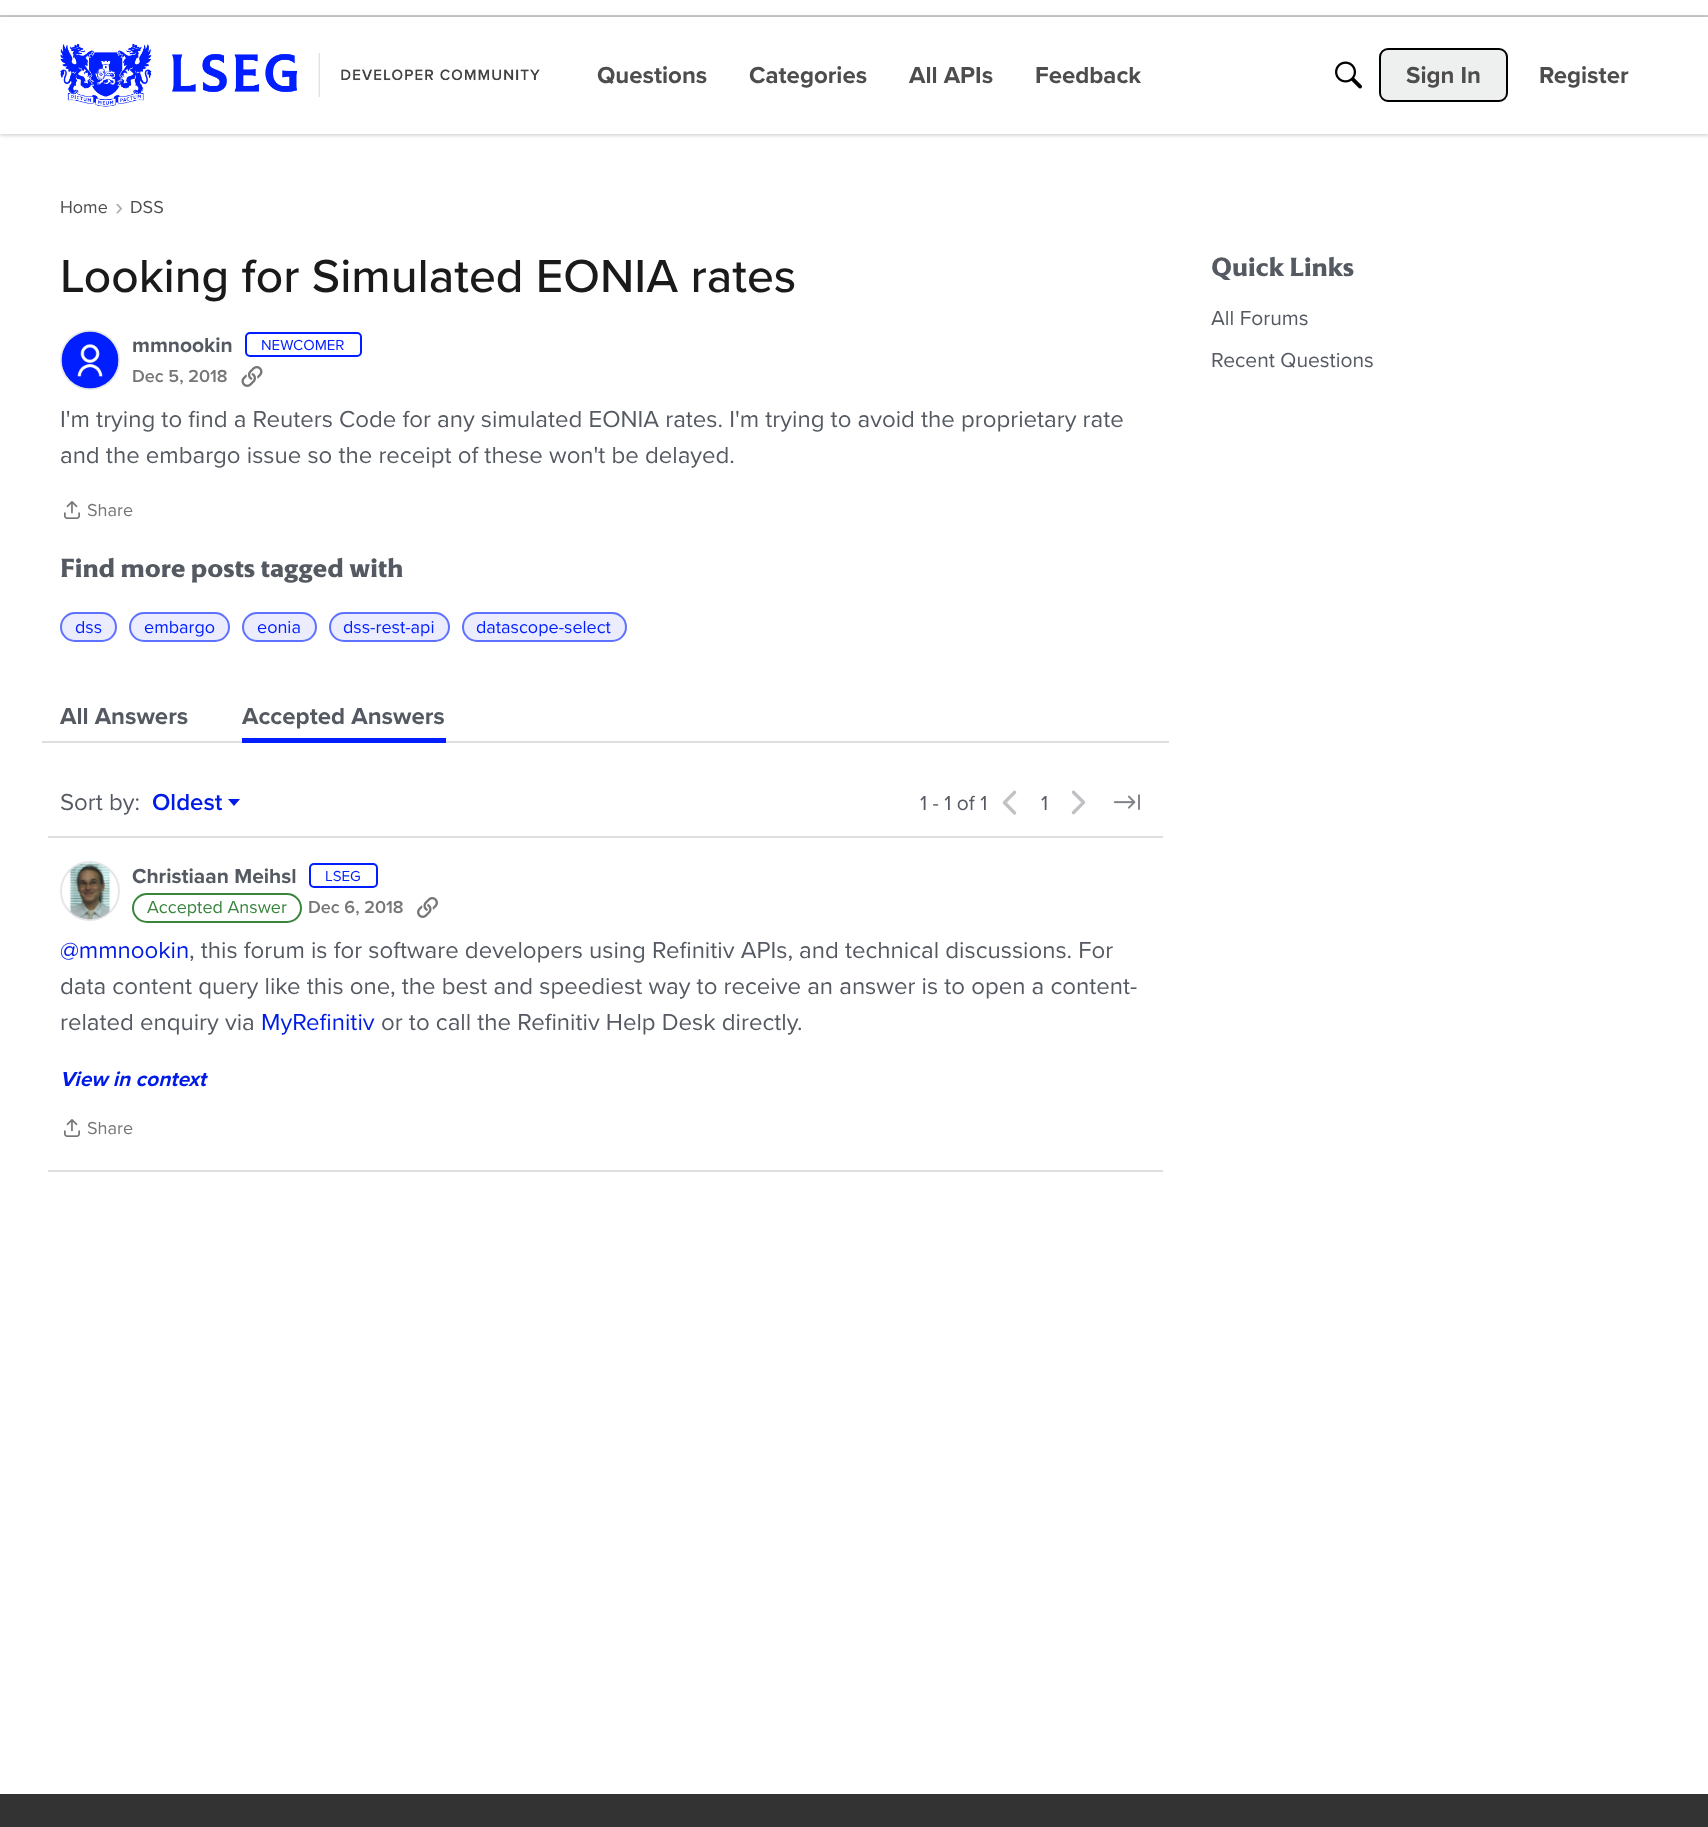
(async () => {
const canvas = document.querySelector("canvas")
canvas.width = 1708
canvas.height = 1827
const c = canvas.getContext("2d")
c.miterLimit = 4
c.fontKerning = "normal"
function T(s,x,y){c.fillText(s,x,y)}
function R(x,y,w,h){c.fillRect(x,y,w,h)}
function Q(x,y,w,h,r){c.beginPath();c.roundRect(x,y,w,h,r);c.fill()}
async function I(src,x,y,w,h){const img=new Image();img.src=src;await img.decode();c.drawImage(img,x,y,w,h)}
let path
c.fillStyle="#fff"
R(0,0,1708,1827)
c.fillStyle="#ccc"
R(0,15,1708,2)
c.fillStyle="#00000038"
c.filter="blur(2px)"
c.beginPath()
c.rect(0,18,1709,117)
c.fill()
c.filter="none"
c.fillStyle="#fff"
R(0,17,1708,117)
await I("1.png",60,44,480,63)
c.font="bold 24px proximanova"
c.fillStyle="#4d4d4d"
T("Questions",597,83)
T("Categories",749,83)
T("All APIs",909,83)
T("Feedback",1035,83)
await I("2.png",1335,61,27,28)
c.fillStyle="#eeefef"
c.beginPath()
c.roundRect(1380,49,127,52,8)
c.fill()
c.strokeStyle="#000"
c.lineWidth=2
c.stroke()
c.fillStyle="#4d4d4d"
T("Sign In",1406,83)
T("Register",1539,83)
c.font="18px proximanova"
T("Home",60,213)
c.font="24px Liberation Sans"
c.fillStyle="#aaadb1"
T("›",115,215)
c.font="18px proximanova"
c.fillStyle="#4d4d4d"
T("DSS",130,213)
c.font="500 48px Proxima Nova"
c.fillStyle="#1a1a1a"
T("Looking for Simulated EONIA rates",60,292)
c.beginPath()
c.arc(90,360,29,0,7)
c.strokeStyle="#e6e6e8"
c.stroke()
await I("3.png",61,331,58,58)
c.font="bold 21px proximanova"
c.fillStyle="#555a62"
T("mmnookin",132,352)
c.beginPath()
c.roundRect(246,333,115,23,4)
c.strokeStyle="#001eff"
c.stroke()
c.font="15px proximanova"
c.fillStyle="#001eff"
T("NEWCOMER",261,350)
c.font="600 18px Proxima Nova"
c.fillStyle="#767676"
T("Dec 5, 2018",132,382)
await I("4.png",241,366,22,21)
c.font="24px proximanova"
c.fillStyle="#555a62"
T("I'm trying to find a Reuters Code for any simulated EONIA rates. I'm trying to avoid the proprietary rate",60,427)
T("and the embargo issue so the receipt of these won't be delayed.",60,463)
await I("5.png",64,501,16,18)
c.font="18px proximanova"
c.fillStyle="#767676"
T("Share",87,516)
c.font="bold 27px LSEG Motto"
c.fillStyle="#555a62"
T("Find more posts tagged with",60,577)
c.fillStyle="#ebedff"
Q(60,612,57,30,15)
c.beginPath()
c.roundRect(61,613,55,28,14)
c.strokeStyle="#001eff99"
c.stroke()
c.font="18px proximanova"
c.fillStyle="#001eff"
T("dss",75,633)
c.fillStyle="#ebedff"
Q(129,612,101,30,15)
c.beginPath()
c.roundRect(130,613,99,28,14)
c.stroke()
c.fillStyle="#001eff"
T("embargo",144,633)
c.fillStyle="#ebedff"
Q(242,612,75,30,15)
c.beginPath()
c.roundRect(243,613,73,28,14)
c.stroke()
c.fillStyle="#001eff"
T("eonia",257,633)
c.fillStyle="#ebedff"
Q(329,612,121,30,15)
c.beginPath()
c.roundRect(330,613,119,28,14)
c.stroke()
c.fillStyle="#001eff"
T("dss-rest-api",343,633)
c.fillStyle="#ebedff"
Q(462,612,165,30,15)
c.beginPath()
c.roundRect(463,613,163,28,14)
c.stroke()
c.fillStyle="#001eff"
T("datascope-select",476,633)
c.fillStyle="#dddee0"
R(42,741,1127,2)
c.font="bold 24px proximanova"
c.fillStyle="#555a62"
T("All Answers",60,724)
T("Accepted Answers",242,724)
c.fillStyle="#001eff"
R(242,738,204,5)
c.font="24px proximanova"
c.fillStyle="#555a62"
T("Sort by:",60,810)
c.font="600 24px Proxima Nova"
c.fillStyle="#001be6"
T("Oldest",152,810)
path = new Path2D("M228 799h12l-6 7z")
c.fill(path)
c.font="21px proximanova"
c.fillStyle="#555a62"
T("1 - 1 of 1",920,810)
await I("6.png",1002,790,15,25)
T("1",1041,810)
await I("7.png",1071,790,15,25)
await I("8.png",1113,794,27,16)
c.fillStyle="#dddee0"
R(48,836,1115,2)
c.beginPath()
c.arc(90,891,29,0,7)
c.strokeStyle="#e6e6e8"
c.stroke()
await I("9.png",69,862,42,58)
c.font="bold 21px proximanova"
c.fillStyle="#555a62"
T("Christiaan Meihsl",132,883)
c.beginPath()
c.roundRect(310,864,67,23,4)
c.strokeStyle="#001eff"
c.stroke()
c.font="15px proximanova"
c.fillStyle="#001eff"
T("LSEG",325,881)
c.beginPath()
c.roundRect(133,894,168,28,14)
c.strokeStyle="#38853d"
c.stroke()
c.font="18px proximanova"
c.fillStyle="#38853d"
T("Accepted Answer",147,913)
c.font="600 18px Proxima Nova"
c.fillStyle="#767676"
T("Dec 6, 2018",308,913)
await I("10.png",417,897,21,21)
c.font="24px proximanova"
c.fillStyle="#001be6"
T("@mmnookin",60,958)
c.fillStyle="#555a62"
T(", this forum is for software developers using Refinitiv APIs, and technical discussions. For",189,958)
T("data content query like this one, the best and speediest way to receive an answer is to open a content-",60,994)
T("related enquiry via",60,1030)
c.fillStyle="#001be6"
T("MyRefinitiv",261,1030)
c.fillStyle="#555a62"
T("or to call the Refinitiv Help Desk directly.",381,1030)
c.font="italic bold 21px proximanova"
c.fillStyle="#001be6"
T("View in context",60,1086)
await I("5.png",64,1119,16,18)
c.font="18px proximanova"
c.fillStyle="#767676"
T("Share",87,1134)
c.fillStyle="#dddee0"
R(48,1170,1115,2)
c.font="bold 27px LSEG Motto"
c.fillStyle="#555a62"
T("Quick Links",1211,276)
c.font="21px proximanova"
T("All Forums",1211,325)
T("Recent Questions",1211,367)
c.fillStyle="#333"
R(0,1794,1708,33)
})()
